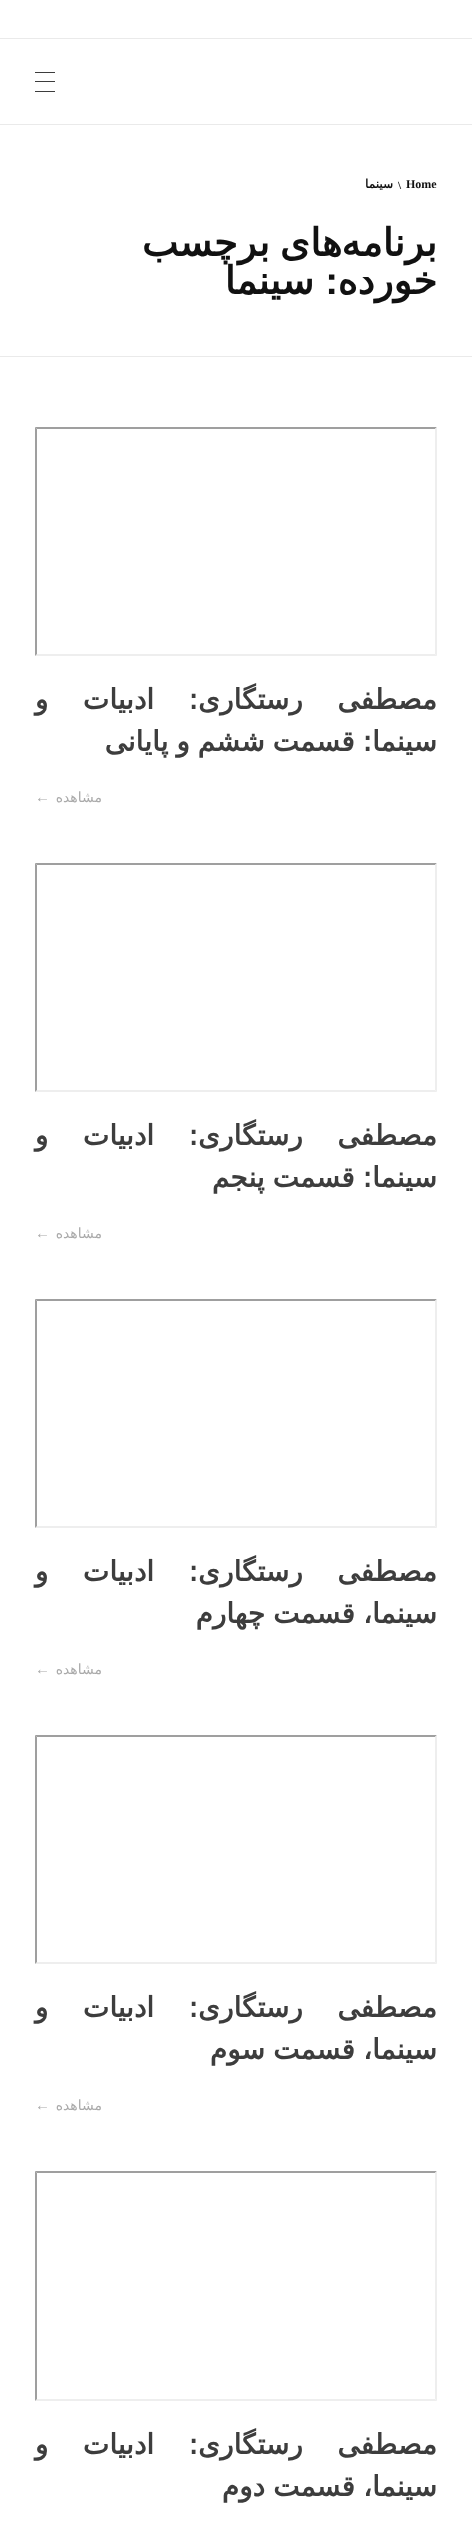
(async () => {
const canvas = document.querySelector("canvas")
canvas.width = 472
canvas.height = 2528
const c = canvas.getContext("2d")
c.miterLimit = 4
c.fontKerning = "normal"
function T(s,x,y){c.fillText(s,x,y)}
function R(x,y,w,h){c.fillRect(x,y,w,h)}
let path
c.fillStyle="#fff"
R(0,0,472,2528)
c.fillStyle="#eaeaea"
R(0,38,472,1)
R(0,124,472,1)
c.fillStyle="#3d3d3d"
R(35,72,20,1)
R(35,81,20,1)
R(35,91,20,1)
c.fillStyle="#eaeaea"
R(0,356,472,1)
c.font="bold 12px Liberation Serif"
c.fillStyle="#111"
T("Home",406,188)
c.font="bold 11px Liberation Serif"
T("\\",398,189)
c.direction="rtl"
c.font="bold 12px DejaVu Sans"
T("سینما",393,188)
c.font="bold 38.5px DejaVu Sans"
T("برنامه",437,256)
c.wordSpacing="-2px"
T("های برچسب",342,256)
c.wordSpacing="0px"
T("خورده",437,294)
c.font="bold 38.5px Liberation Sans"
T(":",338,294)
c.font="bold 38.5px DejaVu Sans"
T("سینما",314,294)
c.fillStyle="#9f9f9f"
path = new Path2D("M35 427h402l-2 2h-398z")
c.fill(path)
c.fillStyle="#eee"
path = new Path2D("M437 427v229l-2-2v-225z")
c.fill(path)
path = new Path2D("M437 656h-402l2-2h398z")
c.fill(path)
c.fillStyle="#9f9f9f"
path = new Path2D("M35 656v-229l2 2v225z")
c.fill(path)
c.wordSpacing="25.5px"
c.font="bold 28px DejaVu Sans"
c.fillStyle="#3d3d3d"
T("مصطفی رستگاری: ادبیات و",437,709)
c.wordSpacing="-1px"
T("سینما: قسمت ششم و پایانی",437,751)
c.wordSpacing="0px"
c.font="14px DejaVu Sans"
c.fillStyle="#aaa"
T("مشاهده",102,802)
c.direction="ltr"
c.font="15px Liberation Sans"
T("←",35,802)
c.fillStyle="#9f9f9f"
path = new Path2D("M35 863h402l-2 2h-398z")
c.fill(path)
c.fillStyle="#eee"
path = new Path2D("M437 863v229l-2-2v-225z")
c.fill(path)
path = new Path2D("M437 1092h-402l2-2h398z")
c.fill(path)
c.fillStyle="#9f9f9f"
path = new Path2D("M35 1092v-229l2 2v225z")
c.fill(path)
c.wordSpacing="25.5px"
c.direction="rtl"
c.font="bold 28px DejaVu Sans"
c.fillStyle="#3d3d3d"
T("مصطفی رستگاری: ادبیات و",437,1145)
c.wordSpacing="-1px"
T("سینما: قسمت پنجم",437,1187)
c.wordSpacing="0px"
c.font="14px DejaVu Sans"
c.fillStyle="#aaa"
T("مشاهده",102,1238)
c.direction="ltr"
c.font="15px Liberation Sans"
T("←",35,1238)
c.fillStyle="#9f9f9f"
path = new Path2D("M35 1299h402l-2 2h-398z")
c.fill(path)
c.fillStyle="#eee"
path = new Path2D("M437 1299v229l-2-2v-225z")
c.fill(path)
path = new Path2D("M437 1528h-402l2-2h398z")
c.fill(path)
c.fillStyle="#9f9f9f"
path = new Path2D("M35 1528v-229l2 2v225z")
c.fill(path)
c.wordSpacing="25.5px"
c.direction="rtl"
c.font="bold 28px DejaVu Sans"
c.fillStyle="#3d3d3d"
T("مصطفی رستگاری: ادبیات و",437,1581)
c.wordSpacing="-1px"
T("سینما، قسمت چهارم",437,1623)
c.wordSpacing="0px"
c.font="14px DejaVu Sans"
c.fillStyle="#aaa"
T("مشاهده",102,1674)
c.direction="ltr"
c.font="15px Liberation Sans"
T("←",35,1674)
c.fillStyle="#9f9f9f"
path = new Path2D("M35 1735h402l-2 2h-398z")
c.fill(path)
c.fillStyle="#eee"
path = new Path2D("M437 1735v229l-2-2v-225z")
c.fill(path)
path = new Path2D("M437 1964h-402l2-2h398z")
c.fill(path)
c.fillStyle="#9f9f9f"
path = new Path2D("M35 1964v-229l2 2v225z")
c.fill(path)
c.wordSpacing="25.5px"
c.direction="rtl"
c.font="bold 28px DejaVu Sans"
c.fillStyle="#3d3d3d"
T("مصطفی رستگاری: ادبیات و",437,2017)
c.wordSpacing="-1px"
T("سینما، قسمت سوم",437,2059)
c.wordSpacing="0px"
c.font="14px DejaVu Sans"
c.fillStyle="#aaa"
T("مشاهده",102,2110)
c.direction="ltr"
c.font="15px Liberation Sans"
T("←",35,2110)
c.fillStyle="#9f9f9f"
path = new Path2D("M35 2171h402l-2 2h-398z")
c.fill(path)
c.fillStyle="#eee"
path = new Path2D("M437 2171v230l-2-2v-226z")
c.fill(path)
path = new Path2D("M437 2401h-402l2-2h398z")
c.fill(path)
c.fillStyle="#9f9f9f"
path = new Path2D("M35 2401v-230l2 2v226z")
c.fill(path)
c.wordSpacing="25.5px"
c.direction="rtl"
c.font="bold 28px DejaVu Sans"
c.fillStyle="#3d3d3d"
T("مصطفی رستگاری: ادبیات و",437,2454)
c.wordSpacing="-1px"
T("سینما، قسمت دوم",437,2496)
})()
